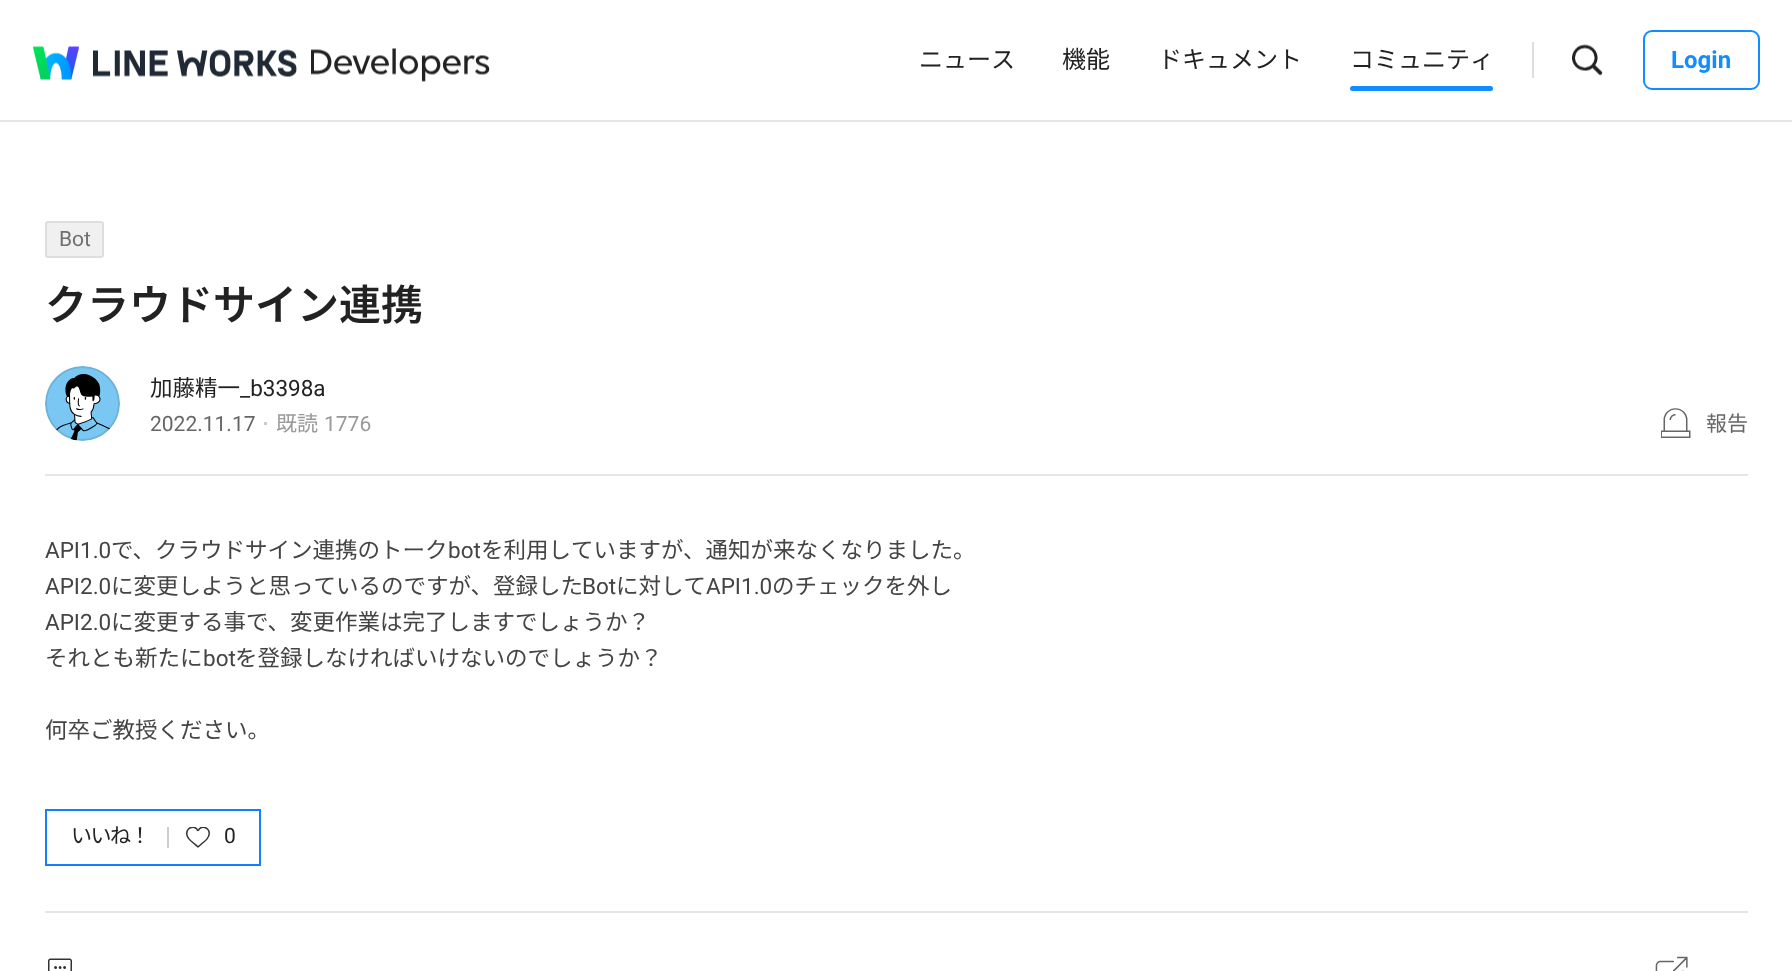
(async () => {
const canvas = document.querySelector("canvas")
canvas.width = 1792
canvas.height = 971
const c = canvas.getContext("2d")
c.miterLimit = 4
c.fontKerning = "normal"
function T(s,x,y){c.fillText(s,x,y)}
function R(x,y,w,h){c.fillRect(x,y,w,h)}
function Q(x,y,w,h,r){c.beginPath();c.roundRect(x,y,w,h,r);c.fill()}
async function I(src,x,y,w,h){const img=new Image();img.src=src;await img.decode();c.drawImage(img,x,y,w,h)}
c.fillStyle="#fff"
R(0,0,1792,971)
c.fillStyle="#e5e5e6"
R(0,120,1792,2)
await I("1.png",33,46,264,34)
await I("2.png",311,48,179,34)
c.font="24px Noto Sans CJK JP"
c.fillStyle="#222"
T("ニュース",919,68)
T("機能",1062,68)
T("ドキュメント",1158,68)
T("コミュニティ",1350,68)
c.fillStyle="#118dff"
Q(1350,86,143,5,2.5)
c.fillStyle="#ddd"
R(1532,42,2,36)
await I("3.png",1572,44,31,32)
c.beginPath()
c.roundRect(1644,31,115,58,8)
c.strokeStyle="#118dff"
c.lineWidth=2
c.stroke()
c.font="bold 24px Roboto"
c.fillStyle="#118dff"
T("Login",1671,68)
c.fillStyle="#f0f0f0"
c.beginPath()
c.roundRect(46,222,57,35,2)
c.fill()
c.strokeStyle="#dedede"
c.stroke()
c.font="21px Roboto"
c.fillStyle="#6f6f6f"
T("Bot",59,246)
c.font="600 42px Noto Sans JP"
c.fillStyle="#222"
T("クラウドサイン連携",45,320)
await I("4.png",45,366,75,75)
c.beginPath()
c.arc(82.5,403.5,36.5,0,7)
c.strokeStyle="#0000001a"
c.stroke()
c.font="22.5px Noto Sans CJK JP"
T("加藤精一",150,396)
c.font="22.5px Roboto"
T("_b3398a",240,396)
c.font="21px Roboto"
c.fillStyle="#666"
T("2022.11.17",150,431)
c.fillStyle="#ccc"
R(264,422,3,3)
c.font="21px Noto Sans CJK JP"
c.fillStyle="#999"
T("既読",276,431)
c.font="21px Roboto"
T("1776",324,431)
await I("5.png",1661,408,30,30)
c.font="21px Noto Sans CJK JP"
c.fillStyle="#666"
T("報告",1706,431)
c.fillStyle="#e5e5e5"
R(45,474,1703,2)
c.font="22.5px Roboto"
c.fillStyle="#444"
T("API1.0",45,558)
c.font="22.5px Noto Sans CJK JP"
T("で、クラウドサイン連携のトーク",111,558)
c.font="22.5px Roboto"
T("bot",448,558)
c.font="22.5px Noto Sans CJK JP"
T("を利用していますが、通知が来なくなりました。",481,558)
c.font="22.5px Roboto"
T("API2.0",45,594)
c.font="22.5px Noto Sans CJK JP"
T("に変更しようと思っているのですが、登録した",111,594)
c.font="22.5px Roboto"
T("Bot",582,594)
c.font="22.5px Noto Sans CJK JP"
T("に対して",616,594)
c.font="22.5px Roboto"
T("API1.0",706,594)
c.font="22.5px Noto Sans CJK JP"
T("のチェックを外し",772,594)
c.font="22.5px Roboto"
T("API2.0",45,630)
c.font="22.5px Noto Sans CJK JP"
T("に変更する事で、変更作業は完了しますでしょうか？",111,630)
T("それとも新たに",45,666)
c.font="22.5px Roboto"
T("bot",203,666)
c.font="22.5px Noto Sans CJK JP"
T("を登録しなければいけないのでしょうか？",235,666)
T("何卒ご教授ください。",45,738)
c.strokeStyle="#157efb"
c.strokeRect(46,810,214,55)
c.letterSpacing="-1.5px"
c.font="21px Noto Sans CJK JP"
c.fillStyle="#222"
T("いいね！",71,843)
c.fillStyle="#cdcdcd"
R(167,827,2,21)
await I("6.png",186,827,24,21)
c.letterSpacing="0px"
c.font="21px Roboto"
c.fillStyle="#222"
T("0",224,843)
c.fillStyle="#e5e5e5"
R(45,911,1703,2)
await I("7.png",48,958,24,13)
await I("8.png",1655,956,33,15)
})()
